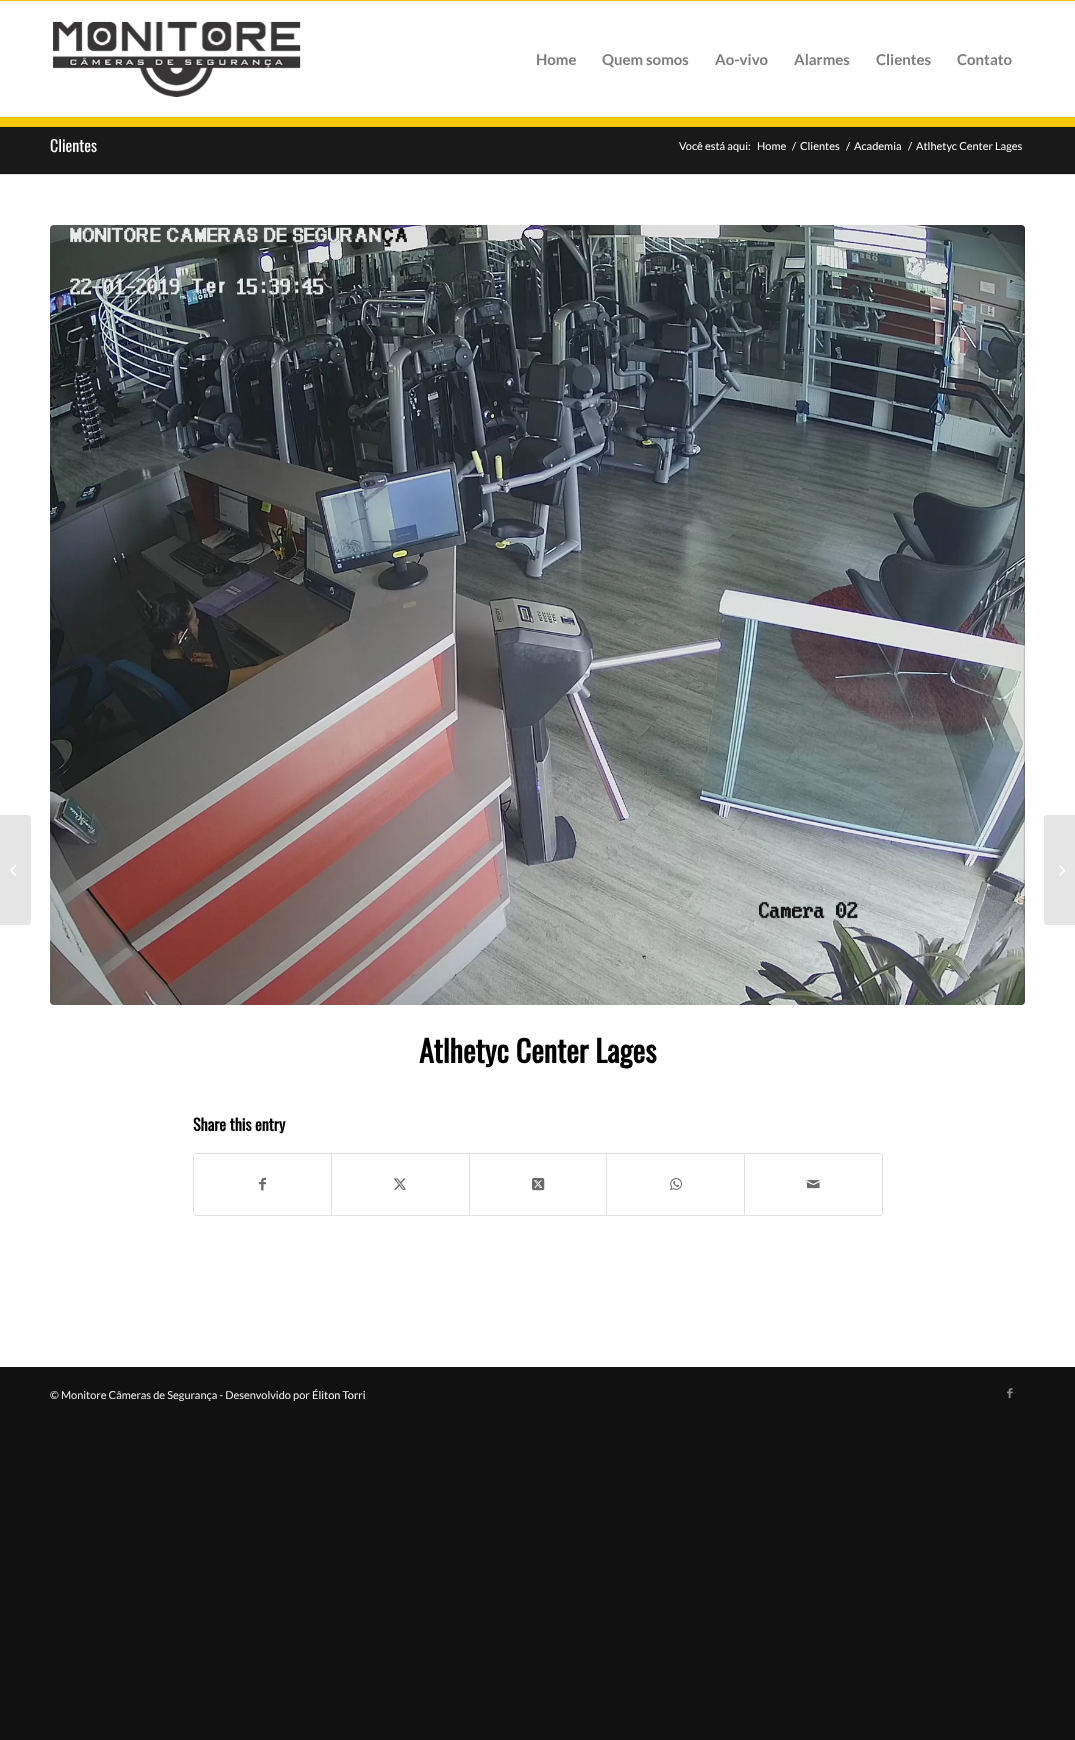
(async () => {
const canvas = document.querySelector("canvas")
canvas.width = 1075
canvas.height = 1740
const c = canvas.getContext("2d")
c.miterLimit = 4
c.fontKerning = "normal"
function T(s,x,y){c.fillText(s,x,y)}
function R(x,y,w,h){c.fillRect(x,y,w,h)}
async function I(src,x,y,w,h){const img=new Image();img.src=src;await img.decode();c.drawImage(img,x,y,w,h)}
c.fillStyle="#111"
R(0,0,1075,1740)
c.fillStyle="#fff"
R(0,175,1075,1192)
R(0,1,1075,115)
c.fillStyle="#fec803"
R(0,0,1075,1)
R(0,117,1075,10)
await I("1.png",53,21,248,76)
c.font="bold 15px Lato"
c.fillStyle="#7d7d7d"
T("Home",536,65)
T("Quem somos",602,65)
T("Ao-vivo",715,65)
T("Alarmes",794,65)
T("Clientes",876,65)
T("Contato",957,65)
c.fillStyle="#e6e6e6"
c.beginPath()
c.roundRect(0,815,31,110,[0,4,4,0])
c.fill()
await I("2.png",10,865,7,11)
c.fillStyle="#191919"
R(0,127,1075,47)
c.fillStyle="#f6f6f6"
R(0,116,1075,1)
c.font="16px Oswald"
c.fillStyle="#fff"
T("Clientes",50,152)
c.font="11px Lato"
T("Você está aqui:",679,150)
T("Home",757,150)
T("/",792,150)
T("Clientes",800,150)
T("/",846,150)
T("Academia",854,150)
T("/",908,150)
T("Atlhetyc Center Lages",916,150)
c.fillStyle="#e1e1e1"
R(0,174,1075,1)
await I("3.png",50,225,975,780)
c.font="bold 30px Oswald"
c.fillStyle="#000"
T("Atlhetyc Center Lages",419,1063)
c.font="bold 16px Oswald"
T("Share this entry",193,1131)
c.beginPath()
c.roundRect(193.5,1153.5,689,62,2.5)
c.strokeStyle="#e1e1e1"
c.stroke()
await I("4.png",259,1177,7,14)
c.fillStyle="#e1e1e1"
R(331,1154,1,61)
await I("5.png",393,1178,14,12)
R(469,1154,1,61)
await I("6.png",532,1178,13,13)
R(606,1154,1,61)
await I("7.png",670,1178,12,13)
R(744,1154,1,61)
await I("8.png",807,1180,13,9)
c.font="11px Lato"
c.fillStyle="#eee"
T("© Monitore Câmeras de Segurança - Desenvolvido por",50,1399)
c.fillStyle="#fff"
T("Éliton Torri",312,1399)
await I("9.png",1007,1388,6,11)
c.fillStyle="#e6e6e6"
c.beginPath()
c.roundRect(1044,815,31,110,[4,0,0,4])
c.fill()
await I("10.png",1059,865,7,11)
})()
